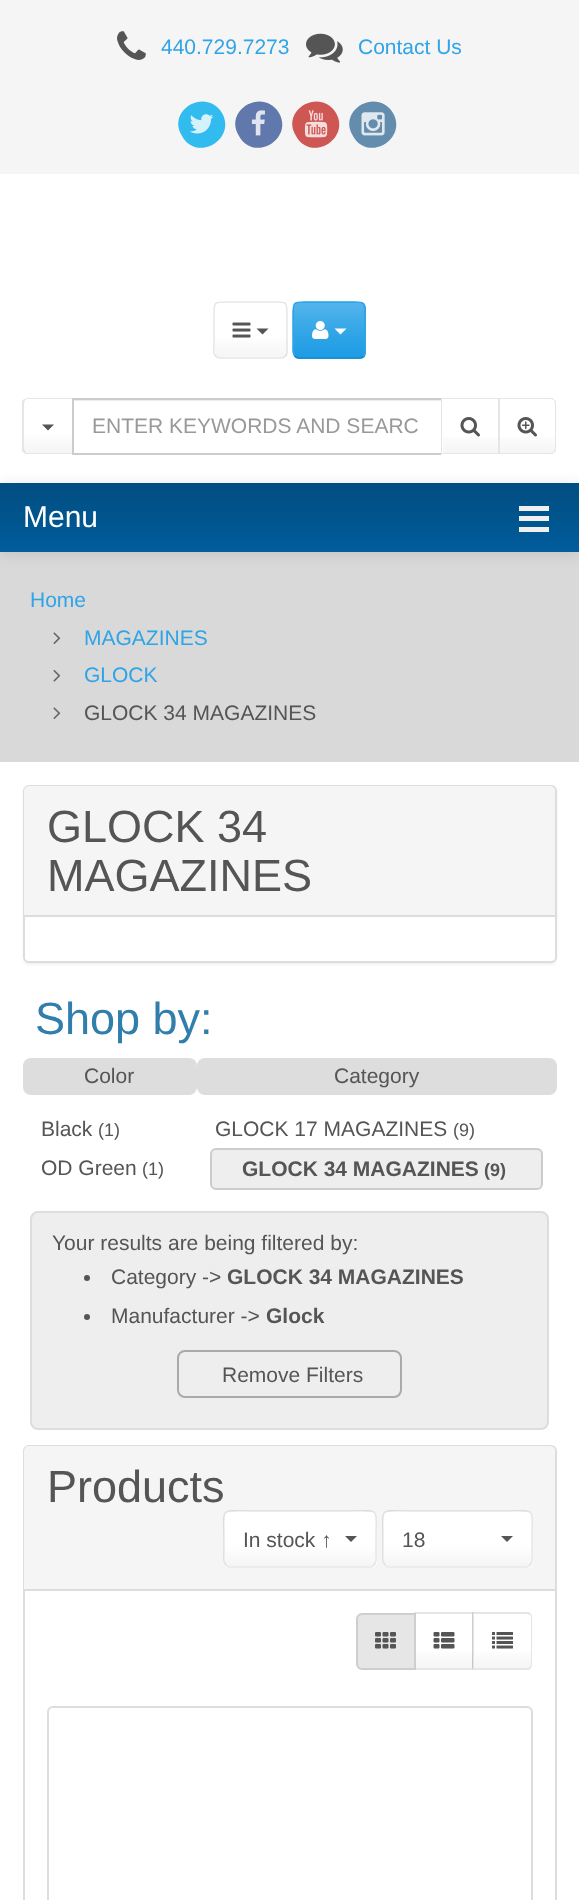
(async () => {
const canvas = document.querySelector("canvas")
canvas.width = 579
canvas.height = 1900
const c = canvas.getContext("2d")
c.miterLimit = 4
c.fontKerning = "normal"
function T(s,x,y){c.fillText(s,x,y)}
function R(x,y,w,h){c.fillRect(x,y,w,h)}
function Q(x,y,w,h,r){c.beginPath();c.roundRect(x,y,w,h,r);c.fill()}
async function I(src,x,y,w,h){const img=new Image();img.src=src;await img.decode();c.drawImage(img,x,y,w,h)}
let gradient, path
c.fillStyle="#fff"
R(0,0,579,1900)
c.fillStyle="#f5f5f5"
R(0,0,579,174)
await I("1.png",117,31,29,29)
c.font="21px Liberation Sans"
c.fillStyle="#2fa4e7"
T("440.729.7273",161,54)
await I("2.png",306,33,37,30)
T("Contact Us",358,54)
c.fillStyle="#31bbef"
path = new Path2D("M222 113c15 26-25 50-40 23c-16-26 24-49 40-23z")
c.fill(path)
await I("3.png",190,114,24,20)
c.fillStyle="#6078ab"
path = new Path2D("M279 113c15 26-25 50-40 23c-16-26 24-49 40-23z")
c.fill(path)
await I("4.png",251,110,14,26)
c.fillStyle="#ce5753"
path = new Path2D("M336 113c15 26-25 50-40 23c-16-26 24-49 40-23z")
c.fill(path)
await I("5.png",304,110,24,28)
c.fillStyle="#638cad"
path = new Path2D("M393 113c15 26-25 50-40 23c-16-26 24-49 40-23z")
c.fill(path)
await I("6.png",361,112,24,24)
c.save()
c.beginPath()
c.roundRect(213,302,75,57,6)
c.clip()
gradient = c.createLinearGradient(251,303,251,357)
gradient.addColorStop(0,"#fff")
gradient.addColorStop(.6,"#fff")
gradient.addColorStop(1,"#f5f5f5")
c.fillStyle = gradient
R(215,303,72,54)
c.restore()
path = new Path2D("M285.5 356c-1 1-2 2-3.5 2h-63c-1.5 0-2.5-1-3.5-2")
c.strokeStyle="#e6e6e6"
c.lineWidth=1.5
c.stroke(path)
path = new Path2D("M215.5 356c-3-2.5-1.5-8-1.5-11v-30c0-14.5 .5-13 15.5-13h42c15 0 15.5-1.5 15.5 13v30c0 3 1.5 8.5-1.5 11")
c.strokeStyle="#0000001a"
c.stroke(path)
await I("7.png",232,322,19,16)
c.fillStyle="#555"
path = new Path2D("M256.5 328.5h12l-6 6z")
c.fill(path)
c.fillStyle="#2fa4e7"
Q(293,302,73,57,6)
c.save()
c.beginPath()
c.roundRect(293,302,73,57,6)
c.clip()
gradient = c.createLinearGradient(329,303,329,357)
gradient.addColorStop(0,"#54b4eb")
gradient.addColorStop(.6,"#2fa4e7")
gradient.addColorStop(1,"#1d9ce5")
c.fillStyle = gradient
R(294,303,71,54)
c.restore()
path = new Path2D("M363.5 356c-1 1-2 2-3.5 2h-61.5c-1.5 0-2.5-1-3.5-2")
c.strokeStyle="#178acc"
c.stroke(path)
path = new Path2D("M295 356c-3-2.5-2-8-2-11v-30c0-14.5 1-13 16-13h41c14.5 0 15-1.5 15 13v30c0 3 1.5 8.5-1.5 11")
c.strokeStyle="#2fa4e7"
c.stroke(path)
await I("8.png",312,321,17,18)
c.fillStyle="#fff"
path = new Path2D("M334.5 328.5h12l-6 6z")
c.fill(path)
c.save()
c.beginPath()
c.roundRect(23,398,51,57,[6,0,0,6])
c.clip()
gradient = c.createLinearGradient(48,399,48,453)
gradient.addColorStop(0,"#fff")
gradient.addColorStop(.6,"#fff")
gradient.addColorStop(1,"#f5f5f5")
c.fillStyle = gradient
R(24,399,48,54)
c.restore()
c.fillStyle="#e6e6e6"
path = new Path2D("M28 398l-4 1l1 1l2-1h45l1-1zm45 56h-45c-1 0-3 0-4-1l1-1l2 1h45z")
c.fill(path)
c.fillStyle="#0000001a"
path = new Path2D("M22 401l2-2l1 1c0 1-1 2-1 4v44c0 2 1 3 1 4l-1 1l-2-2z")
c.fill(path)
c.fillStyle="#555"
path = new Path2D("M42 424.5h12l-6 6z")
c.fill(path)
c.fillStyle="#ececec"
R(74,400,367,1)
c.strokeStyle="#ccc"
c.lineWidth=2
c.strokeRect(73,399,369,55)
c.fillStyle="#999"
T("ENTER KEYWORDS AND SEARC",92,433)
c.fillStyle="#fff"
R(441,398,2,57)
gradient = c.createLinearGradient(470,399,470,453)
gradient.addColorStop(0,"#fff")
gradient.addColorStop(.6,"#fff")
gradient.addColorStop(1,"#f5f5f5")
c.fillStyle = gradient
R(443,437,55,16)
c.fillStyle="#e6e6e6"
path = new Path2D("M441 398h59l-2 1h-56zm59 56h-59l1-1h56z")
c.fill(path)
c.fillStyle="#0000001a"
path = new Path2D("M441 454v-56l1 1v54z")
c.fill(path)
await I("9.png",460,417,20,20)
c.fillStyle="#fff"
c.beginPath()
c.roundRect(498,398,59,57,[0,6,6,0])
c.fill()
gradient = c.createLinearGradient(527,399,527,453)
gradient.addColorStop(0,"#fff")
gradient.addColorStop(.6,"#fff")
gradient.addColorStop(1,"#f5f5f5")
c.fillStyle = gradient
R(500,437,55,16)
c.fillStyle="#e6e6e6"
path = new Path2D("M500 399h50c2 0 3 1 4 1c0-2-2-2-4-2h-52l2 2z")
c.fill(path)
c.fillStyle="#0000001a"
path = new Path2D("M554 400c2 0 2 2 2 4v44c0 2 0 4-2 4c0-1 1-2 1-4v-44c0-2-1-3-1-4z")
c.fill(path)
c.fillStyle="#e6e6e6"
path = new Path2D("M554 452c0 2-2 2-4 2h-52l2-2v1h50c2 0 3-1 4-1z")
c.fill(path)
c.fillStyle="#0000001a"
path = new Path2D("M498 398l2 2v52l-2 2z")
c.fill(path)
await I("10.png",517,417,20,20)
c.fillStyle="#d9d9d9"
R(0,552,579,210)
c.fillStyle="#0000001a"
c.filter="blur(7.5px)"
c.beginPath()
c.rect(0,485,579,69)
c.fill()
c.filter="none"
gradient = c.createLinearGradient(290,483,290,552)
gradient.addColorStop(0,"#014e82")
gradient.addColorStop(.6,"#00568f")
gradient.addColorStop(1,"#015d9e")
c.fillStyle = gradient
R(0,483,579,69)
c.font="30px Liberation Sans"
c.fillStyle="#fff"
T("Menu",23,527)
c.fillStyle="#f0f0f0"
R(519,506,30,5)
R(519,516,30,5)
R(519,527,30,5)
c.font="21px Liberation Sans"
c.fillStyle="#2fa4e7"
T("Home",30,607)
await I("11.png",53,632,8,12)
T("MAGAZINES",84,645)
await I("12.png",53,670,8,12)
T("GLOCK",84,682)
await I("11.png",53,707,8,12)
c.fillStyle="#555"
T("GLOCK 34 MAGAZINES",84,720)
c.fillStyle="#0000000d"
c.filter="blur(1px)"
c.beginPath()
c.roundRect(23,786,534,179,6)
c.fill()
c.filter="none"
c.fillStyle="#fff"
c.beginPath()
c.roundRect(24,786,532,176,5)
c.fill()
c.strokeStyle="#ddd"
c.stroke()
c.fillStyle="#f5f5f5"
c.beginPath()
c.roundRect(24,786,531,131,[5,5,0,0])
c.fill()
c.fillStyle="#ddd"
R(24,915,531,2)
c.font="45px Liberation Sans"
c.fillStyle="#555"
T("GLOCK 34",47,842)
T("MAGAZINES",47,891)
c.fillStyle="#317eac"
T("Shop by:",35,1034)
c.fillStyle="#ddd"
Q(23,1058,174,37,8)
c.font="21px Liberation Sans"
c.fillStyle="#555"
T("Color",84,1083)
T("Black",41,1136)
c.font="18px Liberation Sans"
T("(1)",98,1136)
c.font="21px Liberation Sans"
T("OD Green",41,1175)
c.font="18px Liberation Sans"
T("(1)",142,1175)
c.fillStyle="#ddd"
Q(197,1058,360,37,8)
c.font="21px Liberation Sans"
c.fillStyle="#555"
T("Category",334,1083)
T("GLOCK 17 MAGAZINES",215,1136)
c.font="18px Liberation Sans"
T("(9)",453,1136)
c.fillStyle="#eee"
c.beginPath()
c.roundRect(211,1149,331,40,5)
c.fill()
c.strokeStyle="#ccc"
c.stroke()
c.font="bold 21px Liberation Sans"
c.fillStyle="#555"
T("GLOCK 34 MAGAZINES",242,1176)
c.font="bold 18px Liberation Sans"
T("(9)",484,1176)
c.fillStyle="#eee"
c.beginPath()
c.roundRect(31,1212,517,217,7)
c.fill()
c.strokeStyle="#ddd"
c.stroke()
c.font="21px Liberation Sans"
c.fillStyle="#555"
T("Your results are being filtered by:",52,1250)
c.beginPath()
c.arc(87,1278,3,0,7)
c.fill()
T("Category ->",111,1284)
c.font="bold 21px Liberation Sans"
T("GLOCK 34 MAGAZINES",227,1284)
c.beginPath()
c.arc(87,1317,3,0,7)
c.fill()
c.font="21px Liberation Sans"
T("Manufacturer ->",111,1323)
c.font="bold 21px Liberation Sans"
T("Glock",266,1323)
c.beginPath()
c.roundRect(178,1351,223,46,7)
c.strokeStyle="#aaa"
c.stroke()
c.font="21px Liberation Sans"
T("Remove Filters",222,1382)
c.beginPath()
c.roundRect(24,1446,532,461,5)
c.strokeStyle="#ddd"
c.stroke()
c.fillStyle="#f5f5f5"
c.beginPath()
c.roundRect(24,1446,531,144,[5,5,0,0])
c.fill()
c.fillStyle="#ddd"
R(24,1589,531,2)
c.font="45px Liberation Sans"
c.fillStyle="#555"
T("Products",47,1502)
c.fillStyle="#fff"
Q(224,1511,153,57,6)
c.save()
c.beginPath()
c.roundRect(224,1511,153,57,6)
c.clip()
gradient = c.createLinearGradient(300,1512,300,1566)
gradient.addColorStop(0,"#fff")
gradient.addColorStop(.6,"#fff")
gradient.addColorStop(1,"#f5f5f5")
c.fillStyle = gradient
R(225,1512,150,54)
c.restore()
path = new Path2D("M374 1565c-1 1-2 2-3.5 2h-141c-1.5 0-2.5-1-3.5-2")
c.strokeStyle="#e6e6e6"
c.lineWidth=1.5
c.stroke(path)
path = new Path2D("M226 1565c-3-2.5-2-8-2-11v-15c0-33-5.5-28 29-28h94c34.5 0 29-5 29 28v15c0 3 1 8.5-2 11")
c.strokeStyle="#0000001a"
c.stroke(path)
c.font="21px Liberation Sans"
c.fillStyle="#555"
T("In stock ↑",243,1547)
path = new Path2D("M345 1536h12l-6 6z")
c.fill(path)
c.fillStyle="#fff"
Q(383,1511,150,57,6)
c.save()
c.beginPath()
c.roundRect(383,1511,150,57,6)
c.clip()
gradient = c.createLinearGradient(458,1512,458,1566)
gradient.addColorStop(0,"#fff")
gradient.addColorStop(.6,"#fff")
gradient.addColorStop(1,"#f5f5f5")
c.fillStyle = gradient
R(384,1512,147,54)
c.restore()
path = new Path2D("M530 1565c-1 1-2 2-3.5 2h-138c-1.5 0-2.5-1-3.5-2")
c.strokeStyle="#e6e6e6"
c.stroke(path)
path = new Path2D("M385 1565c-3-2.5-2-8-2-11v-15c0-33-5.5-28 28.5-28h92c34 0 28.5-5 28.5 28v15c0 3 1 8.5-2 11")
c.strokeStyle="#0000001a"
c.stroke(path)
c.fillStyle="#555"
T("18",402,1547)
path = new Path2D("M501 1536h12l-6 6z")
c.fill(path)
c.fillStyle="#e6e6e6"
path = new Path2D("M414 1612h60l-2 2h-56z")
c.fill(path)
gradient = c.createLinearGradient(444,1614,444,1668)
gradient.addColorStop(0,"#fff")
gradient.addColorStop(.6,"#fff")
gradient.addColorStop(1,"#f5f5f5")
c.fillStyle = gradient
R(416,1652,57,16)
c.fillStyle="#0000001a"
path = new Path2D("M474 1612v58l-2-2v-54z")
c.fill(path)
c.fillStyle="#e6e6e6"
path = new Path2D("M474 1670h-60l2-2h56z")
c.fill(path)
c.fillStyle="#0000001a"
path = new Path2D("M414 1670v-58l2 2v54z")
c.fill(path)
c.fillStyle="#e6e6e6"
c.beginPath()
c.roundRect(356,1613,60,57,[6,0,0,6])
c.fill()
c.beginPath()
c.roundRect(357,1614,58,55,[5,0,0,5])
c.lineWidth=2
c.stroke()
await I("13.png",375,1632,21,17)
await I("14.png",433,1632,22,17)
c.fillStyle="#fff"
c.beginPath()
c.roundRect(473,1613,60,57,[0,6,6,0])
c.fill()
gradient = c.createLinearGradient(503,1614,503,1668)
gradient.addColorStop(0,"#fff")
gradient.addColorStop(.6,"#fff")
gradient.addColorStop(1,"#f5f5f5")
c.fillStyle = gradient
R(474,1652,57,16)
c.fillStyle="#0000001a"
path = new Path2D("M474 1614l-2-2h57l2 2l-1 1c-1 0-2-1-4-1z")
c.fill(path)
path = new Path2D("M531 1614c1 1 1 3 1 4v46c0 1 0 3-1 4l-1-1c1-1 1-2 1-3v-46c0-1 0-2-1-3z")
c.fill(path)
c.fillStyle="#e6e6e6"
path = new Path2D("M531 1668l-2 2h-57l2-2h52c2 0 3-1 4-1z")
c.fill(path)
c.fillStyle="#0000001a"
path = new Path2D("M472 1670l2-2v-54l-2-2z")
c.fill(path)
await I("15.png",492,1632,21,17)
c.beginPath()
c.roundRect(48,1707,484,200,5)
c.strokeStyle="#ddd"
c.stroke()
})()
